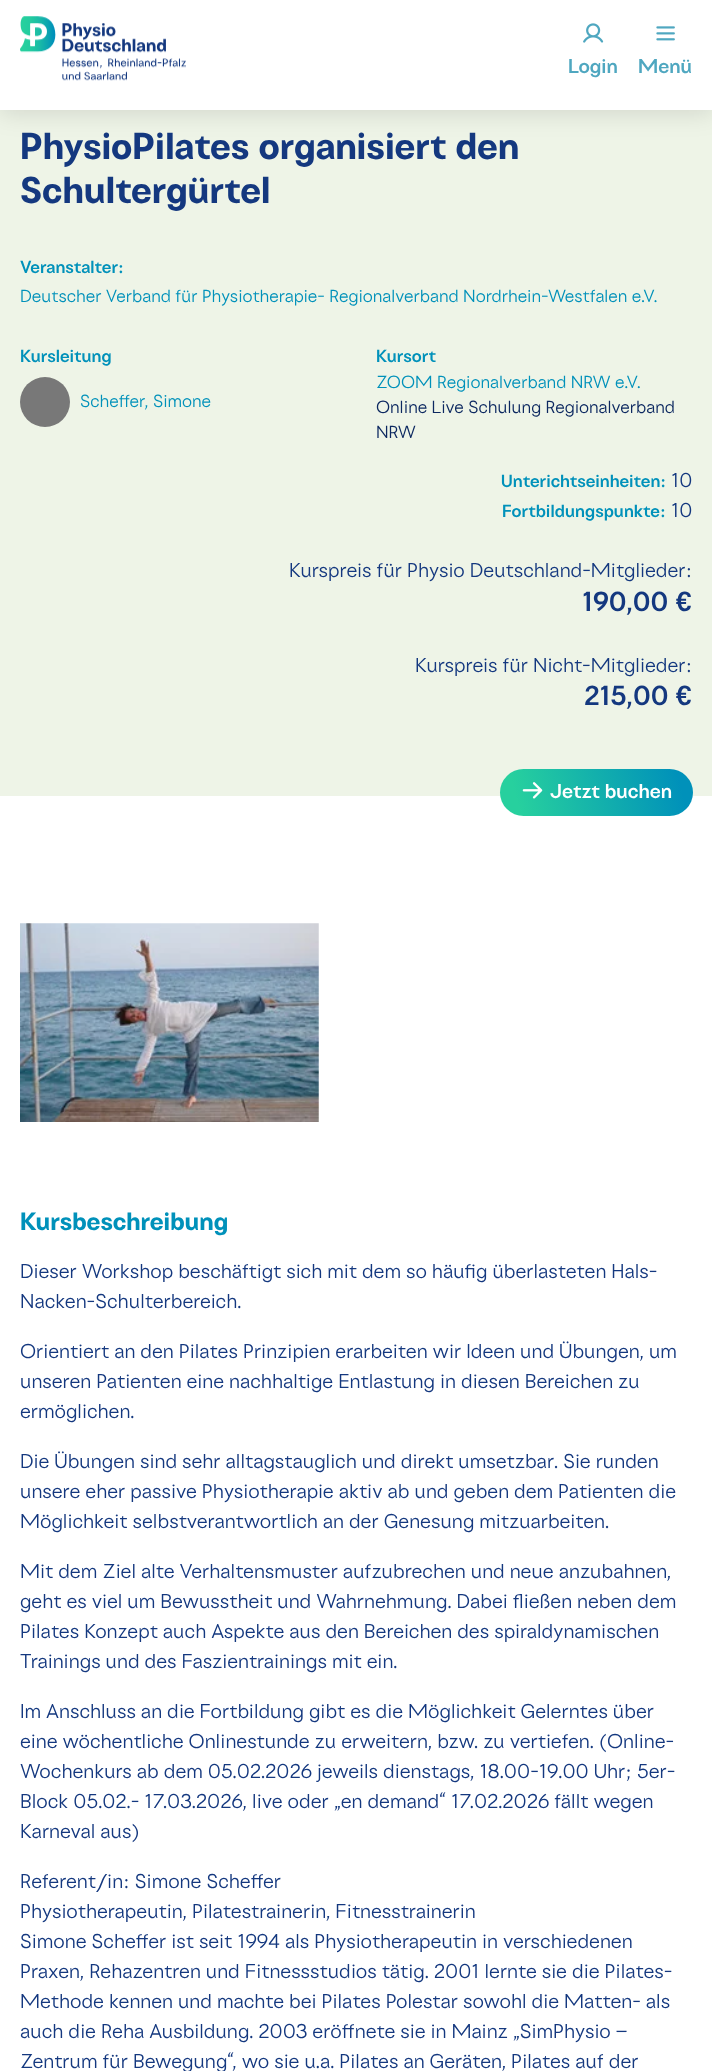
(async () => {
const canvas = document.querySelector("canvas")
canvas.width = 712
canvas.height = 2071
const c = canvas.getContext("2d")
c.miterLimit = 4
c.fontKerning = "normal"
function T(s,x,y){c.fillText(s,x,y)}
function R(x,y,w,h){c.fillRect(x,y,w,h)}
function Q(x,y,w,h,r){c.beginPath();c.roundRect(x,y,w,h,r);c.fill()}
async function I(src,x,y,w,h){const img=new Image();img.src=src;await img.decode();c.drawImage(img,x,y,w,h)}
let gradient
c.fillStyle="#fff"
R(0,0,712,2071)
c.fillStyle="#eef4e7"
R(0,110,712,686)
c.fillStyle="#0000001f"
c.filter="blur(12.5px)"
c.beginPath()
c.rect(0,3,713,110)
c.fill()
c.filter="none"
c.fillStyle="#fff"
R(0,0,712,110)
await I("1.png",20,16,166,65)
await I("2.png",583,23,21,20)
c.font="600 20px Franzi"
c.fillStyle="#4fa7c0"
T("Login",568,73)
await I("3.png",656,26,19,15)
T("Menü",638,73)
c.font="bold 37.5px Franzi"
c.fillStyle="#14387f"
T("PhysioPilates organisiert den",20,159)
T("Schultergürtel",20,203)
c.font="600 17.5px Franzi"
c.fillStyle="#0091ba"
T("Veranstalter:",20,273)
c.font="17.5px Franzi"
T("Deutscher Verband für Physiotherapie- Regionalverband Nordrhein-Westfalen e.V.",20,302)
c.font="600 17.5px Franzi"
T("Kursleitung",20,362)
await I("4.png",20,377,50,50)
c.font="17.5px Franzi"
T("Scheffer, Simone",80,407)
c.font="600 17.5px Franzi"
T("Kursort",376,362)
c.font="17.5px Franzi"
T("ZOOM Regionalverband NRW e.V.",376,388)
c.fillStyle="#0c2860"
T("Online Live Schulung Regionalverband",376,413)
T("NRW",376,438)
c.font="600 17.5px Franzi"
c.fillStyle="#0091ba"
T("Unterichtseinheiten:",501,487)
c.font="20px Franzi"
c.fillStyle="#14387f"
T("10",671,487)
c.font="600 17.5px Franzi"
c.fillStyle="#0091ba"
T("Fortbildungspunkte:",502,517)
c.font="20px Franzi"
c.fillStyle="#14387f"
T("10",671,517)
T("Kurspreis für Physio Deutschland-Mitglieder:",289,577)
c.font="600 27.5px Franzi"
T("190,00 €",582,611)
c.font="20px Franzi"
T("Kurspreis für Nicht-Mitglieder:",415,672)
c.font="600 27.5px Franzi"
T("215,00 €",584,705)
gradient = c.createLinearGradient(692,767,501,818)
gradient.addColorStop(.08,"#0091ba")
gradient.addColorStop(.9,"#27d09e")
c.fillStyle = gradient
Q(500,769,193,47,23.5)
await I("5.png",522,782,21,17)
c.font="600 20px Franzi"
c.fillStyle="#fff"
T("Jetzt buchen",550,798)
await I("6.png",20,923,299,199)
c.font="bold 25px Franzi"
c.fillStyle="#0091ba"
T("Kursbeschreibung",20,1230)
c.font="20px Franzi"
c.fillStyle="#14387f"
T("Dieser Workshop beschäftigt sich mit dem so häufig überlasteten Hals-",20,1278)
T("Nacken-Schulterbereich.",20,1308)
T("Orientiert an den Pilates Prinzipien erarbeiten wir Ideen und Übungen, um",20,1358)
T("unseren Patienten eine nachhaltige Entlastung in diesen Bereichen zu",20,1388)
T("ermöglichen.",20,1418)
T("Die Übungen sind sehr alltagstauglich und direkt umsetzbar. Sie runden",20,1468)
T("unsere eher passive Physiotherapie aktiv ab und geben dem Patienten die",20,1498)
T("Möglichkeit selbstverantwortlich an der Genesung mitzuarbeiten.",20,1528)
T("Mit dem Ziel alte Verhaltensmuster aufzubrechen und neue anzubahnen,",20,1578)
T("geht es viel um Bewusstheit und Wahrnehmung. Dabei fließen neben dem",20,1608)
T("Pilates Konzept auch Aspekte aus den Bereichen des spiraldynamischen",20,1638)
T("Trainings und des Faszientrainings mit ein.",20,1668)
T("Im Anschluss an die Fortbildung gibt es die Möglichkeit Gelerntes über",20,1718)
T("eine wöchentliche Onlinestunde zu erweitern, bzw. zu vertiefen. (Online-",20,1748)
T("Wochenkurs ab dem 05.02.2026 jeweils dienstags, 18.00-19.00 Uhr; 5er-",20,1778)
T("Block 05.02.- 17.03.2026, live oder „en demand“ 17.02.2026 fällt wegen",20,1808)
T("Karneval aus)",20,1838)
T("Referent/in: Simone Scheffer",20,1888)
T("Physiotherapeutin, Pilatestrainerin, Fitnesstrainerin",20,1918)
T("Simone Scheffer ist seit 1994 als Physiotherapeutin in verschiedenen",20,1948)
T("Praxen, Rehazentren und Fitnessstudios tätig. 2001 lernte sie die Pilates-",20,1978)
T("Methode kennen und machte bei Pilates Polestar sowohl die Matten- als",20,2008)
T("auch die Reha Ausbildung. 2003 eröffnete sie in Mainz „SimPhysio –",20,2038)
T("Zentrum für Bewegung“, wo sie u.a. Pilates an Geräten, Pilates auf der",20,2068)
})()
